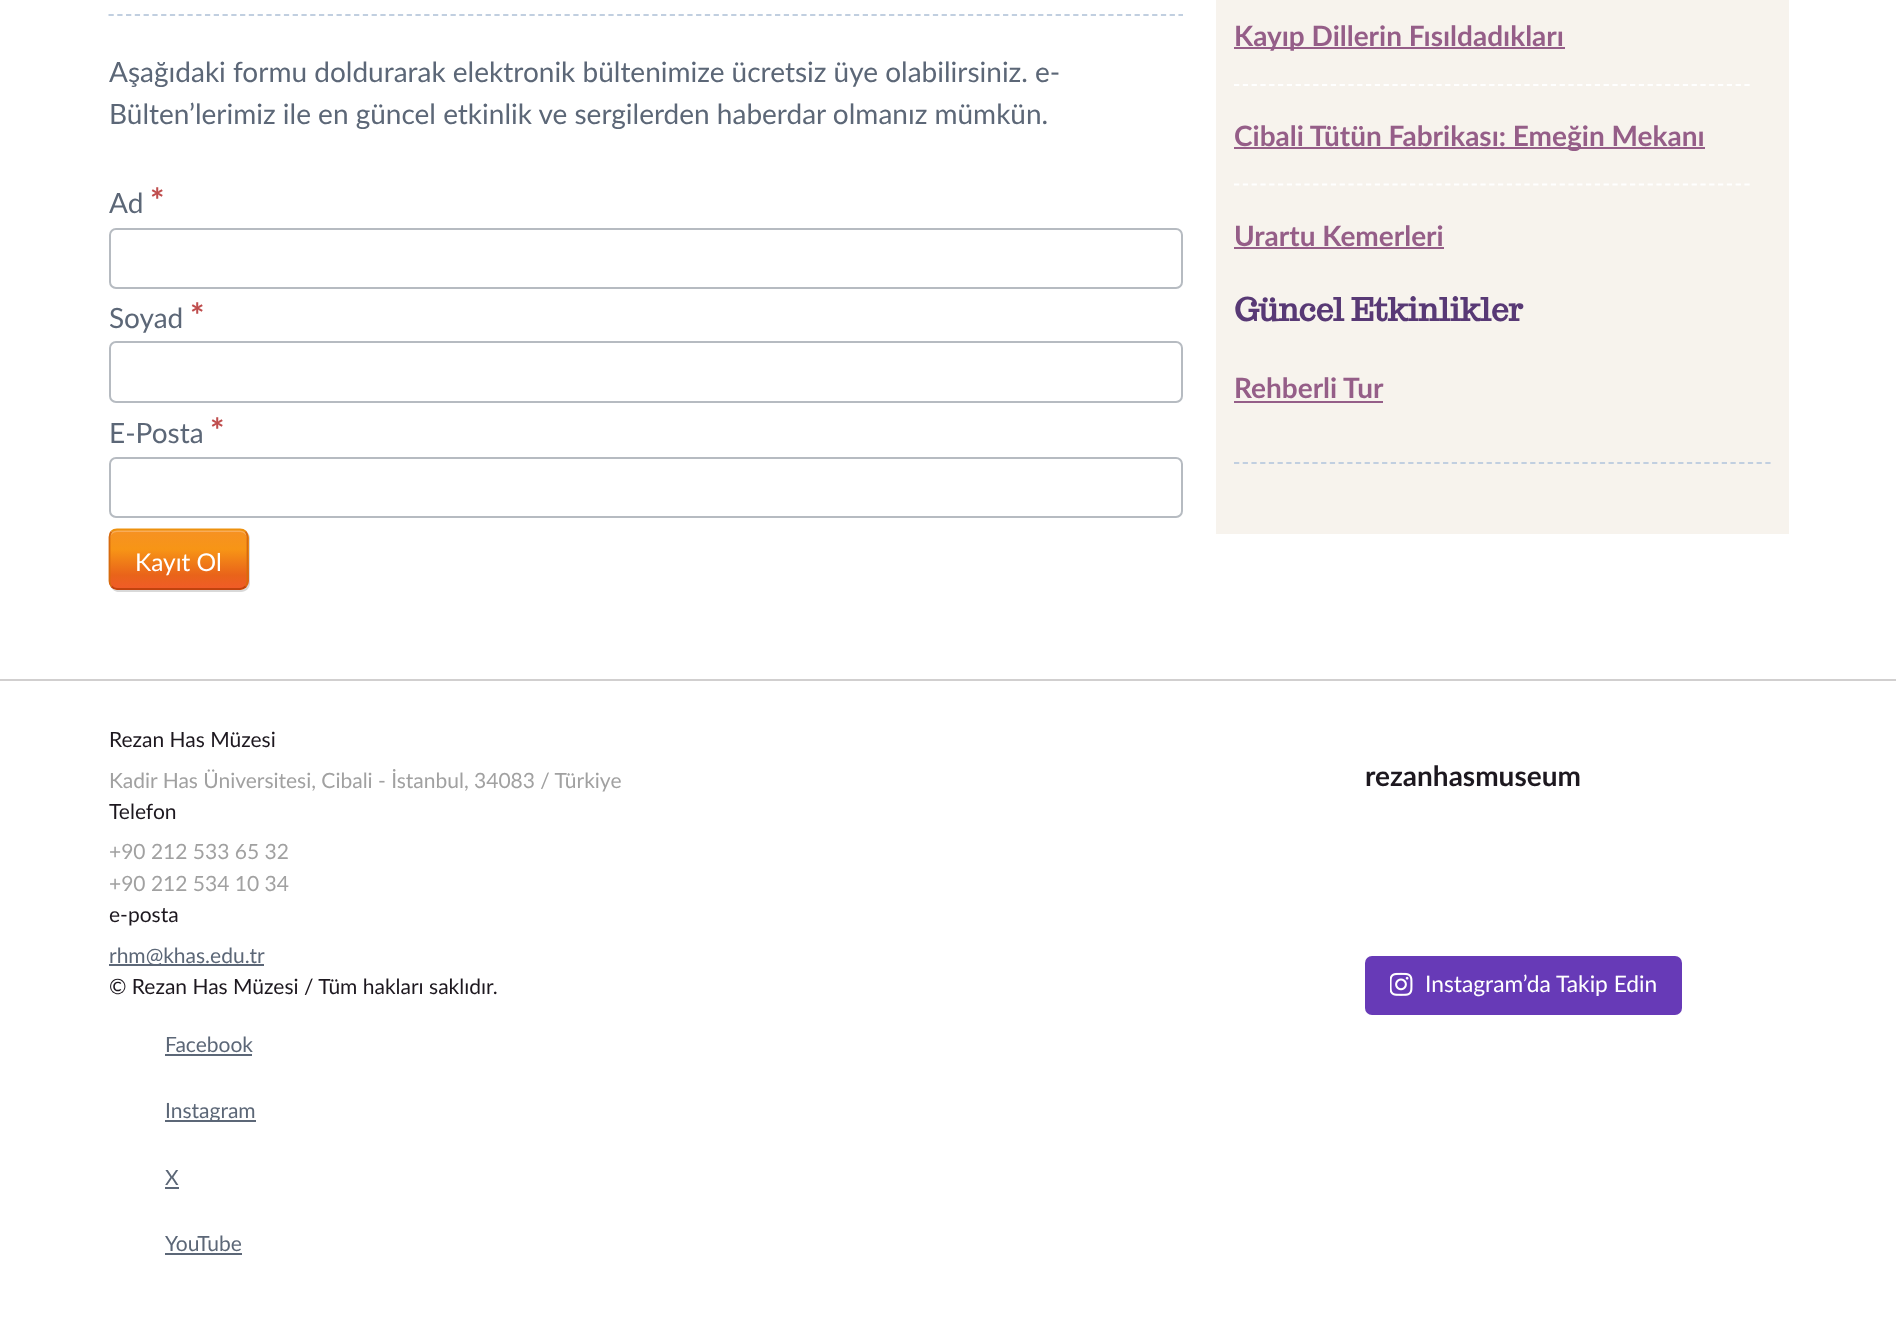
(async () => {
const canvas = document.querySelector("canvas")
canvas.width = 1896
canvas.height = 1336
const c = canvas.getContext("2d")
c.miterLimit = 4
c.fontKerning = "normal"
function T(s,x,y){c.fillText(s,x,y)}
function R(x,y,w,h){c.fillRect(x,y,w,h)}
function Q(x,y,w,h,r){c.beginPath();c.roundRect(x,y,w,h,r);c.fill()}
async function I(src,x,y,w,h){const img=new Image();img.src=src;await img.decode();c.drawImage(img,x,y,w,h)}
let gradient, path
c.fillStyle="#fff"
R(0,0,1896,1336)
path = new Path2D("M108.5 15h1074.5")
c.strokeStyle="#c1cfe0"
c.lineWidth=1.8
c.setLineDash([5.25,3.52])
c.stroke(path)
c.font="28px Lato"
c.fillStyle="#5c6777"
T("Aşağıdaki formu doldurarak elektronik bültenimize ücretsiz üye olabilirsiniz. e-",109,82)
T("Bülten’lerimiz ile en güncel etkinlik ve sergilerden haberdar olmanız mümkün.",109,124)
T("Ad",109,213)
c.font="bold 34px Lato"
c.fillStyle="#bf4d4d"
T("*",150,213)
c.beginPath()
c.roundRect(110,229,1072,59,6)
c.strokeStyle="#b6bbc1"
c.lineWidth=2
c.setLineDash([])
c.stroke()
c.font="28px Lato"
c.fillStyle="#5c6777"
T("Soyad",109,328)
c.font="bold 34px Lato"
c.fillStyle="#bf4d4d"
T("*",190,328)
c.beginPath()
c.roundRect(110,342,1072,60,6)
c.stroke()
c.font="28px Lato"
c.fillStyle="#5c6777"
T("E-Posta",109,443)
c.font="bold 34px Lato"
c.fillStyle="#bf4d4d"
T("*",210,443)
c.beginPath()
c.roundRect(110,458,1072,59,6)
c.stroke()
c.fillStyle="#d9d9d9"
path = new Path2D("M111 587c1 3 5 5 8 5h122c5 0 9-4 9-9v-44c0-3-1-5-3-7c1 2 1 3 1 5v44c0 5-3 9-8 9h-123c-2 0-4-1-6-3z")
c.fill(path)
c.save()
c.beginPath()
c.roundRect(109,529,140,61,9)
c.clip()
gradient = c.createLinearGradient(179,530,179,588)
gradient.addColorStop(0,"#f69123")
gradient.addColorStop(.33,"#f79516")
gradient.addColorStop(.78,"#e9631a")
gradient.addColorStop(1,"#f05c27")
c.fillStyle = gradient
R(109,530,140,58)
gradient = c.createLinearGradient(179,588,179,646)
gradient.addColorStop(0,"#f69123")
gradient.addColorStop(.33,"#f79516")
gradient.addColorStop(.78,"#e9631a")
gradient.addColorStop(1,"#f05c27")
c.fillStyle = gradient
R(109,588,140,2)
c.restore()
c.fillStyle="#ffffff40"
path = new Path2D("M117 532h123c4 0 7 3 7 7v-2c0-4-3-7-7-7h-123c-4 0-7 3-7 7v2c0-4 3-7 7-7z")
c.fill(path)
path = new Path2D("M111.5 531.5c1.5-1.5 3.5-2 5.5-2h123c2 0 4 .5 5.5 2")
c.strokeStyle="#ed910e"
c.lineWidth=1.8
c.stroke(path)
path = new Path2D("M245.5 531.5c1.5 1.5 2 3.5 2 5.5v44c0 2-.5 4-2 5.5")
c.strokeStyle="#d76a0e"
c.stroke(path)
path = new Path2D("M245.5 586.5c-1.5 1.5-3.5 2.5-5.5 2.5h-123c-2 0-4-1-5.5-2.5")
c.strokeStyle="#c1430e"
c.stroke(path)
path = new Path2D("M111.5 586.5c-1.5-1.5-2-3.5-2-5.5v-44c0-2 .5-4 2-5.5")
c.strokeStyle="#d76a0e"
c.stroke(path)
c.font="24.5px Lato"
c.fillStyle="#fff"
T("Kayıt Ol",135,571)
c.fillStyle="#f7f3ed"
R(1216,0,573,534)
c.fillStyle="#955e88"
R(1234,47,331,2)
c.font="bold 28px Lato"
T("Kayıp Dillerin Fısıldadıkları",1234,46)
path = new Path2D("M1234 85h516")
c.strokeStyle="#fff"
c.setLineDash([5.25,3.55])
c.stroke(path)
R(1234,147,471,2)
T("Cibali Tütün Fabrikası: Emeğin Mekanı",1234,146)
path = new Path2D("M1234 184.5h516")
c.stroke(path)
T("Urartu Kemerleri",1234,246)
R(1234,247,210,2)
c.font="bold 31.5px Trocchi"
c.fillStyle="#583975"
T("Güncel Etkinlikler",1234,321)
c.font="bold 28px Lato"
c.fillStyle="#955e88"
T("Rehberli Tur",1234,398)
R(1234,401,149,2)
path = new Path2D("M1234 463h537")
c.strokeStyle="#c1cfe0"
c.setLineDash([5.25,3.46])
c.stroke(path)
c.fillStyle="#d1cfcf"
R(0,679,1896,2)
c.font="21px Lato"
c.fillStyle="#1d181f"
T("Rezan Has Müzesi",109,747)
c.fillStyle="#a1a1a1"
T("Kadir Has Üniversitesi, Cibali - İstanbul, 34083 / Türkiye",109,788)
c.fillStyle="#1d181f"
T("Telefon",109,819)
c.fillStyle="#a1a1a1"
T("+90 212 533 65 32",109,859)
T("+90 212 534 10 34",109,891)
c.fillStyle="#1d181f"
T("e-posta",109,922)
c.fillStyle="#5c6777"
R(109,964,155,2)
T("rhm@khas.edu.tr",109,963)
c.fillStyle="#1d181f"
T("© Rezan Has Müzesi / Tüm hakları saklıdır.",109,994)
c.fillStyle="#5c6777"
T("Facebook",165,1052)
R(165,1054,87,2)
R(165,1120,91,2)
T("Instagram",165,1118)
T("X",165,1185)
R(165,1187,14,2)
T("YouTube",165,1251)
R(165,1253,77,2)
c.font="bold 28px Lato"
c.fillStyle="#1d181f"
T("rezanhasmuseum",1365,786)
c.fillStyle="#673ab7"
Q(1365,956,317,59,7)
await I("1.png",1390,972,23,24)
c.font="22.75px Lato"
c.fillStyle="#fff"
T("Instagram’da Takip Edin",1425,992)
})()
